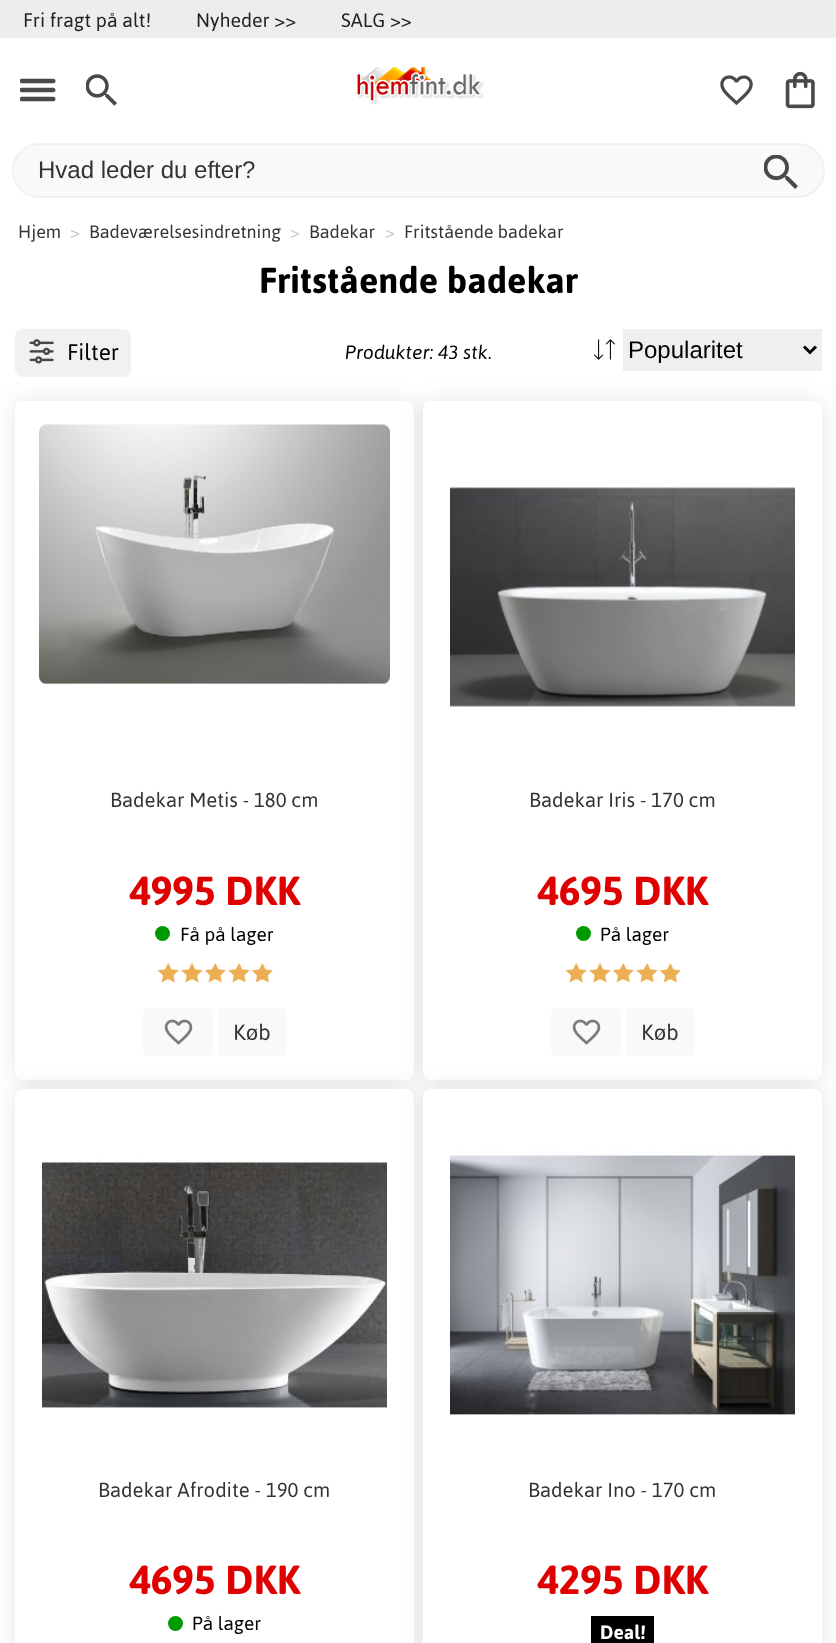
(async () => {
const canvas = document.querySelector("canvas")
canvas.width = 836
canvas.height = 1643
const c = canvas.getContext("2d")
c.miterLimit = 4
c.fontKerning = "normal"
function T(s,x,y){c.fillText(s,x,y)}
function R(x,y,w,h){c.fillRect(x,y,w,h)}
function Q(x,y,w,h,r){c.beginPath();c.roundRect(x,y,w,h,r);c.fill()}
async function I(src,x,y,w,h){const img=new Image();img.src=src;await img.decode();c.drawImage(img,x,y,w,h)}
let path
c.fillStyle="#fff"
R(0,0,836,1643)
c.fillStyle="#ededed"
R(0,0,836,38)
c.font="19.5px Asap"
c.fillStyle="#222"
T("Fri fragt på alt!",23,27)
T("Nyheder >>",196,27)
T("SALG >>",341,27)
await I("1.png",20,78,36,24)
await I("2.png",86,74,31,32)
await I("3.png",357,66,127,39)
await I("4.png",720,75,33,31)
await I("5.png",785,71,30,38)
c.fillStyle="#f9f9f9"
c.beginPath()
c.roundRect(13,144,811,53,26.5)
c.fill()
c.strokeStyle="#f1f1f1"
c.lineWidth=2
c.stroke()
c.font="24px Liberation Sans"
c.fillStyle="#333"
T("Hvad leder du efter?",38,178)
await I("6.png",764,155,34,34)
c.font="18px Asap"
T("Hjem",18,238)
c.fillStyle="#c9c9c9"
T(">",70,238)
c.fillStyle="#333"
T("Badeværelsesindretning",89,238)
c.fillStyle="#c9c9c9"
T(">",290,238)
c.fillStyle="#333"
T("Badekar",309,238)
c.fillStyle="#c9c9c9"
T(">",385,238)
c.fillStyle="#333"
T("Fritstående badekar",404,238)
c.font="bold 36px Asap"
c.fillStyle="#000"
T("Fritstående badekar",259,293)
c.fillStyle="#f1f1f1"
Q(15,329,116,48,8)
await I("7.png",29,339,25,25)
c.font="22.5px Asap"
c.fillStyle="#000"
T("Filter",67,360)
c.font="italic 19.25px Asap"
T("Produkter: 43 stk.",345,359)
await I("8.png",594,339,21,21)
c.fillStyle="#efefef"
R(623,329,199,42)
path = new Path2D("M804 346.5l6 6l6-6")
c.strokeStyle="#000"
c.lineWidth=3
c.stroke(path)
c.font="24px Liberation Sans"
c.fillStyle="#000"
T("Popularitet",628,358)
c.save()
path = new Path2D("M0 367h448v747h-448zm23 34h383c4.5 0 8 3.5 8 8v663c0 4.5-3.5 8-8 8h-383c-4.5 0-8-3.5-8-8v-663c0-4.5 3.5-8 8-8z")
c.clip(path,"evenodd")
c.fillStyle="#0000001a"
c.filter="blur(11px)"
c.beginPath()
c.roundRect(15,401,399,679,8)
c.fill()
c.filter="none"
c.restore()
await I("9.png",39,424,351,260)
c.font="20.25px Asap"
c.fillStyle="#333"
T("Badekar Metis - 180 cm",110,807)
c.font="bold 40.5px Asap"
c.fillStyle="#df0000"
T("4995 DKK",129,905)
c.fillStyle="#090"
c.beginPath()
c.arc(162.5,933.5,7.5,0,7)
c.fill()
c.font="19px Asap"
c.fillStyle="#000"
T("Få på lager",180,941)
await I("10.png",157,963,116,20)
c.fillStyle="#f9f9f9"
Q(143,1008,70,48,6)
await I("11.png",164,1019,29,26)
Q(218,1008,69,48,6)
c.font="22px Asap"
c.fillStyle="#333"
T("Køb",233,1040)
c.fillStyle="#0000001a"
c.filter="blur(11px)"
c.beginPath()
c.roundRect(423,401,399,679,8)
c.fill()
c.filter="none"
c.fillStyle="#fff"
Q(423,401,399,679,8)
await I("12.png",450,487,345,221)
c.font="20.25px Asap"
c.fillStyle="#333"
T("Badekar Iris - 170 cm",529,807)
c.font="bold 40.5px Asap"
c.fillStyle="#df0000"
T("4695 DKK",537,905)
c.fillStyle="#090"
c.beginPath()
c.arc(583.5,933.5,7.5,0,7)
c.fill()
c.font="19px Asap"
c.fillStyle="#000"
T("På lager",600,941)
await I("13.png",565,963,116,20)
c.fillStyle="#f9f9f9"
Q(551,1008,70,48,6)
await I("11.png",572,1019,29,26)
Q(626,1008,69,48,6)
c.font="22px Asap"
c.fillStyle="#333"
T("Køb",641,1040)
c.fillStyle="#0000001a"
c.filter="blur(11px)"
c.beginPath()
c.roundRect(15,1089,399,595,8)
c.fill()
c.filter="none"
c.fillStyle="#fff"
Q(15,1089,399,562,8)
await I("14.png",42,1159,345,249)
c.font="20.25px Asap"
c.fillStyle="#333"
T("Badekar Afrodite - 190 cm",98,1497)
c.font="bold 40.5px Asap"
c.fillStyle="#df0000"
T("4695 DKK",129,1594)
c.fillStyle="#090"
c.beginPath()
c.arc(175.5,1623.5,7.5,0,7)
c.fill()
c.font="19px Asap"
c.fillStyle="#000"
T("På lager",192,1630)
c.fillStyle="#0000001a"
c.filter="blur(11px)"
c.beginPath()
c.roundRect(423,1089,399,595,8)
c.fill()
c.filter="none"
c.fillStyle="#fff"
c.beginPath()
c.roundRect(424,1090,397,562,7)
c.fill()
c.strokeStyle="#fff"
c.lineWidth=2
c.stroke()
await I("15.png",450,1150,345,265)
c.font="20.25px Asap"
c.fillStyle="#333"
T("Badekar Ino - 170 cm",528,1497)
c.font="bold 40.5px Asap"
c.fillStyle="#df0000"
T("4295 DKK",537,1594)
c.fillStyle="#000"
R(591,1616,63,27)
c.font="bold 19.25px Asap"
c.fillStyle="#fff"
T("Deal!",600,1639)
})()
